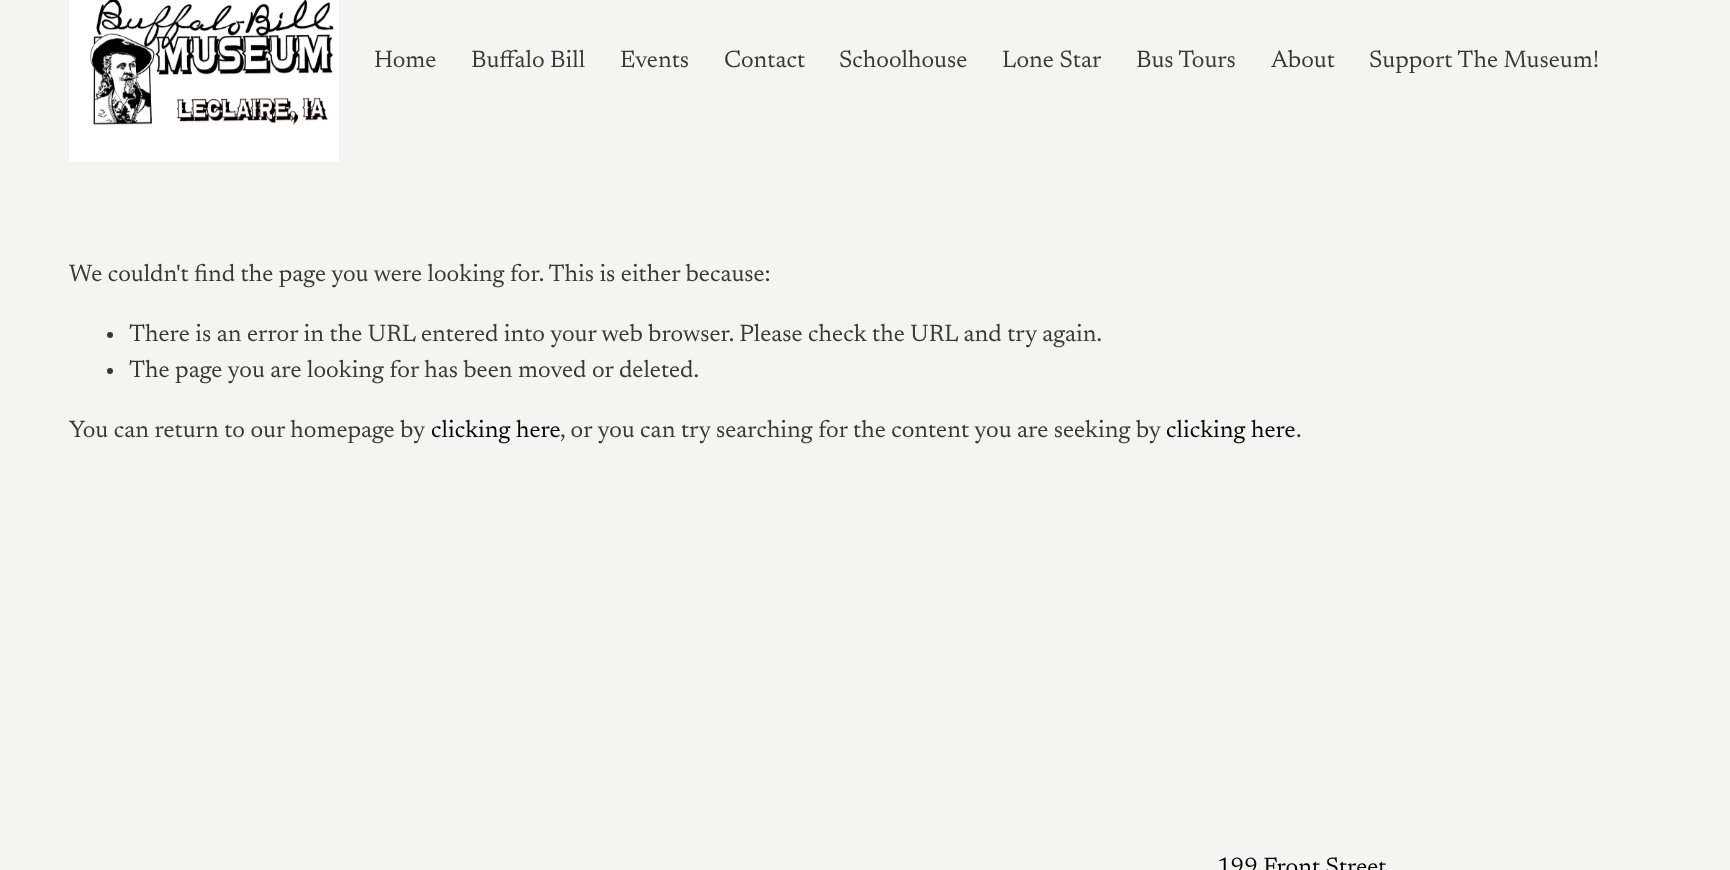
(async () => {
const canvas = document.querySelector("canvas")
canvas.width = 1730
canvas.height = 870
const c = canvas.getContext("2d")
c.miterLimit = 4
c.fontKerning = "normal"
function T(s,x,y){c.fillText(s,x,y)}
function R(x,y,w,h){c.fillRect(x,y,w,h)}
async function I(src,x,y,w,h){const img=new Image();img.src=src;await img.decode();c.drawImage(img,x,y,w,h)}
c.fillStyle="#f4f4f3"
R(0,0,1730,870)
await I("1.png",69,0,270,162)
c.font="24px Newsreader"
c.fillStyle="#383838"
T("Home",374,67)
T("Buffalo Bill",471,67)
T("Events",620,67)
T("Contact",724,67)
T("Schoolhouse",839,67)
T("Lone Star",1002,67)
T("Bus Tours",1136,67)
T("About",1271,67)
T("Support The Museum!",1369,67)
T("We couldn't find the page you were looking for. This is either because:",69,281)
c.beginPath()
c.arc(110,335,3,0,7)
c.fill()
T("There is an error in the URL entered into your web browser. Please check the URL and try again.",129,341)
c.beginPath()
c.arc(110,371,3,0,7)
c.fill()
T("The page you are looking for has been moved or deleted.",129,377)
T("You can return to our homepage by",69,437)
c.fillStyle="#000"
T("clicking here",431,437)
c.fillStyle="#383838"
T(", or you can try searching for the content you are seeking by",560,437)
c.fillStyle="#000"
T("clicking here",1166,437)
c.fillStyle="#383838"
T(".",1296,437)
c.fillStyle="#000"
T("199 Front Street",1217,874)
})()
